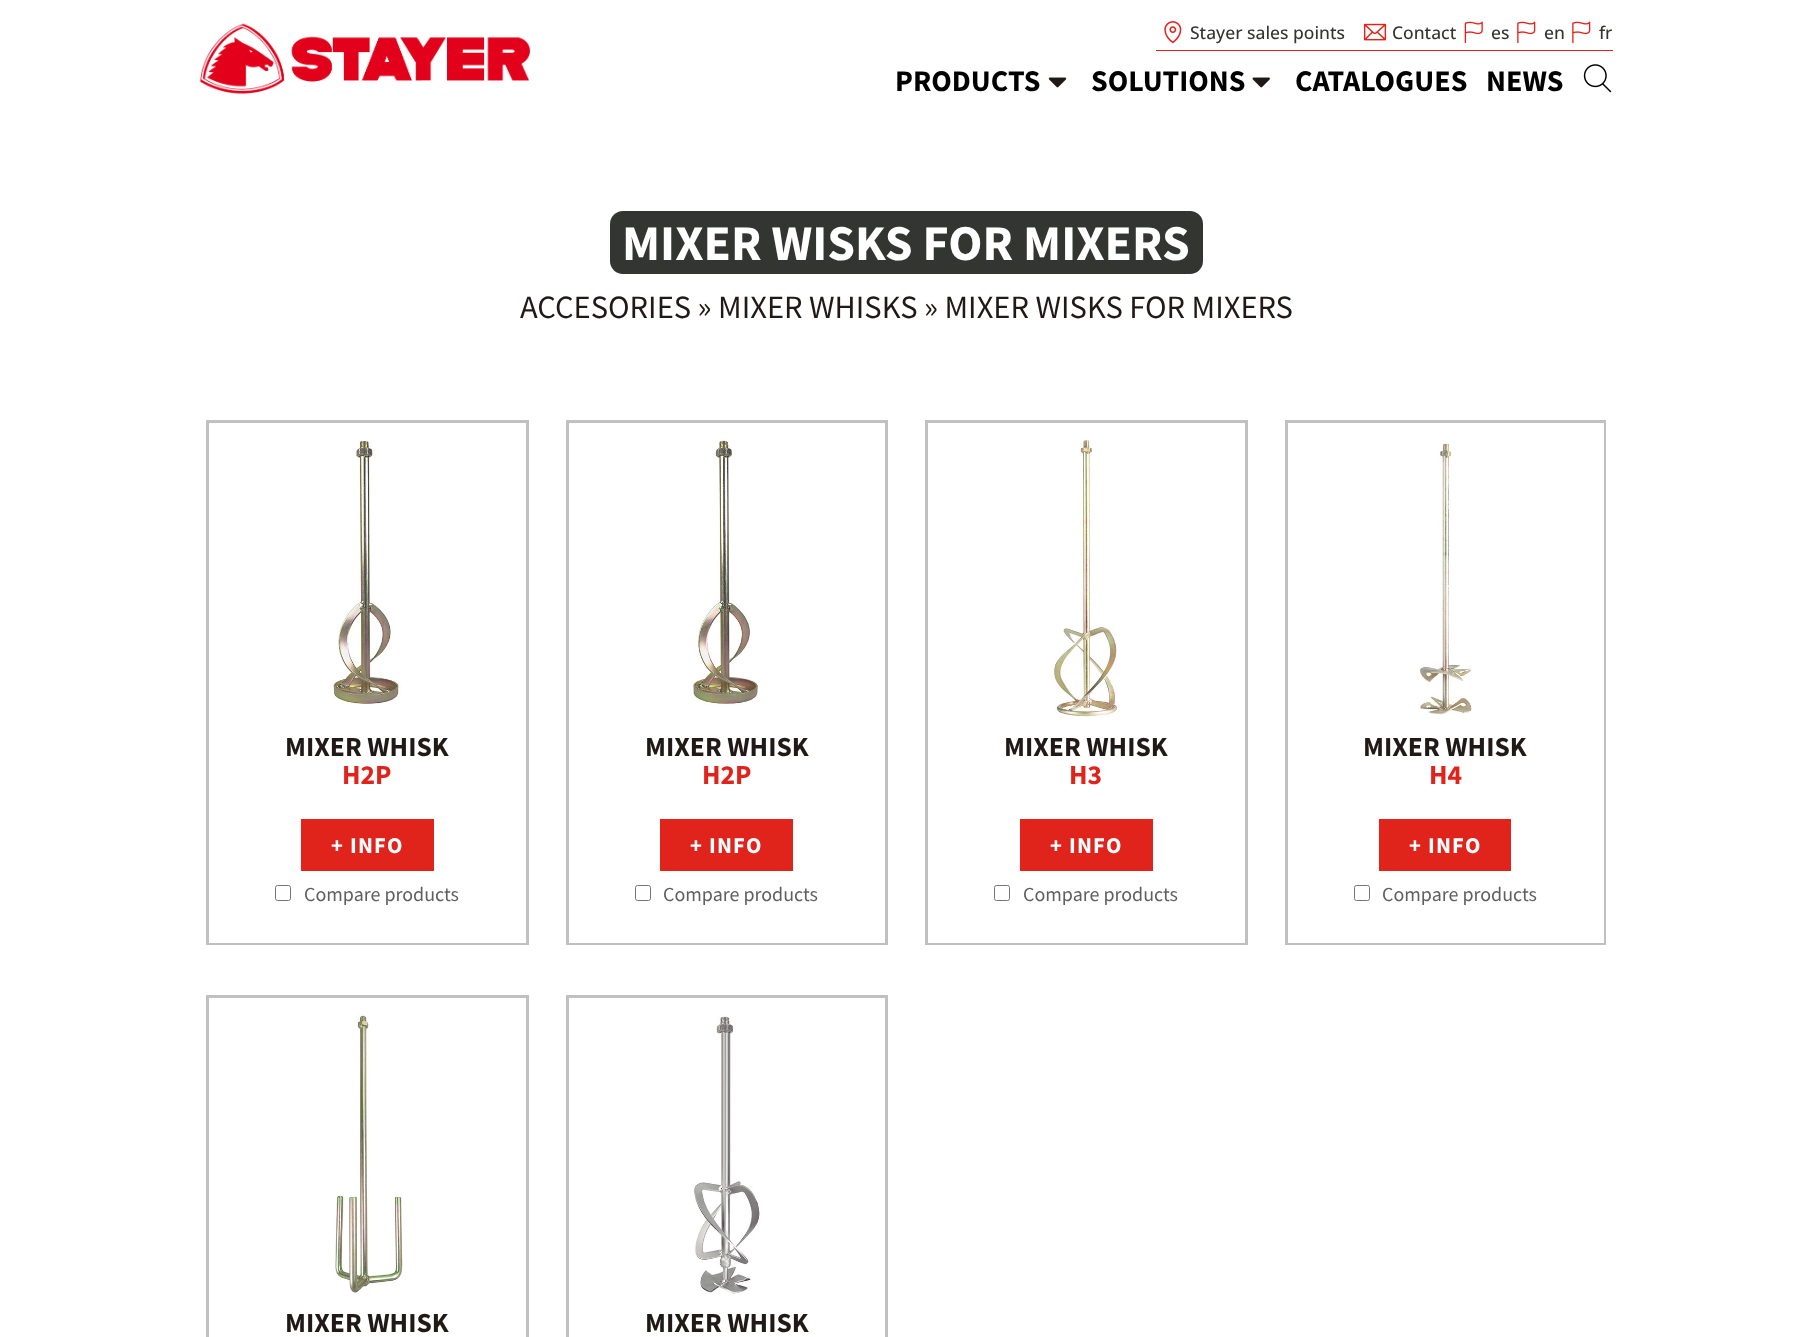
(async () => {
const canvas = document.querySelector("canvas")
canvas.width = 1812
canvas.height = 1337
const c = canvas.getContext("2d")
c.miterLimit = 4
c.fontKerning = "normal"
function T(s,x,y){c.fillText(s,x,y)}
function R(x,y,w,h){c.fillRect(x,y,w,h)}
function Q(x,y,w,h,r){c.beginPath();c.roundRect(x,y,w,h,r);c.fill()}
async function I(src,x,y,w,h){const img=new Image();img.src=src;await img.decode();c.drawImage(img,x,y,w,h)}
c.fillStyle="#fff"
R(0,0,1812,1337)
await I("1.png",200,23,330,71)
c.fillStyle="#e0241c"
R(1156,50,457,1)
await I("2.png",1164,21,18,23)
c.font="500 17.5px Open Sans"
c.fillStyle="#333531"
T("Stayer sales points",1190,39)
await I("3.png",1363,23,24,18)
T("Contact",1392,39)
await I("4.png",1464,21,19,23)
T("es",1491,39)
await I("5.png",1517,21,19,23)
T("en",1544,39)
await I("5.png",1572,21,19,23)
T("fr",1599,39)
c.font="bold 30px Source Sans Pro"
c.fillStyle="#000"
T("PRODUCTS",895,91)
await I("6.png",1048,77,19,11)
T("SOLUTIONS",1091,91)
await I("7.png",1252,77,18,11)
T("CATALOGUES",1295,91)
T("NEWS",1486,91)
await I("8.png",1583,64,29,29)
c.fillStyle="#333531"
Q(610,211,593,63,13)
c.font="bold 50px Source Sans Pro"
c.fillStyle="#fff"
T("MIXER WISKS FOR MIXERS",622,260)
c.font="32.5px Source Sans Pro"
c.fillStyle="#211915"
T("ACCESORIES » MIXER WHISKS » MIXER WISKS FOR MIXERS",520,318)
c.strokeStyle="#c0c0c0"
c.lineWidth=3
c.strokeRect(207.5,421.5,320,522)
c.fillStyle="#fff"
R(209,942,317,1)
await I("9.png",333,439,69,265)
c.font="bold 27.5px Source Sans Pro"
c.fillStyle="#211915"
T("MIXER WHISK",285,756)
c.fillStyle="#e0241c"
T("H2P",342,784)
R(301,819,133,52)
c.letterSpacing="1.25px"
c.font="bold 22.5px Source Sans Pro"
c.fillStyle="#fff"
T("+ INFO",331,853)
c.beginPath()
c.roundRect(275.5,885.5,15,15,2)
c.strokeStyle="#767676"
c.lineWidth=1
c.stroke()
c.letterSpacing="0px"
c.font="20px Source Sans Pro"
c.fillStyle="#5f5f5f"
T("Compare products",304,901)
c.strokeStyle="#c0c0c0"
c.lineWidth=3
c.strokeRect(567.5,421.5,319,522)
c.fillStyle="#fff"
R(569,942,316,1)
await I("10.png",692,439,66,267)
c.font="bold 27.5px Source Sans Pro"
c.fillStyle="#211915"
T("MIXER WHISK",645,756)
c.fillStyle="#e0241c"
T("H2P",702,784)
R(660,819,133,52)
c.letterSpacing="1.25px"
c.font="bold 22.5px Source Sans Pro"
c.fillStyle="#fff"
T("+ INFO",690,853)
c.beginPath()
c.roundRect(635.5,885.5,15,15,2)
c.strokeStyle="#767676"
c.lineWidth=1
c.stroke()
c.letterSpacing="0px"
c.font="20px Source Sans Pro"
c.fillStyle="#5f5f5f"
T("Compare products",663,901)
c.strokeStyle="#c0c0c0"
c.lineWidth=3
c.strokeRect(926.5,421.5,320,522)
c.fillStyle="#fff"
R(928,942,317,1)
await I("11.png",1051,439,67,279)
c.font="bold 27.5px Source Sans Pro"
c.fillStyle="#211915"
T("MIXER WHISK",1004,756)
c.fillStyle="#e0241c"
T("H3",1069,784)
R(1020,819,133,52)
c.letterSpacing="1.25px"
c.font="bold 22.5px Source Sans Pro"
c.fillStyle="#fff"
T("+ INFO",1050,853)
c.beginPath()
c.roundRect(994.5,885.5,15,15,2)
c.strokeStyle="#767676"
c.lineWidth=1
c.stroke()
c.letterSpacing="0px"
c.font="20px Source Sans Pro"
c.fillStyle="#5f5f5f"
T("Compare products",1023,901)
c.strokeStyle="#c0c0c0"
c.lineWidth=3
c.strokeRect(1286.5,421.5,318,522)
c.fillStyle="#fff"
R(1288,423,316,520)
await I("12.png",1419,443,53,272)
c.font="bold 27.5px Source Sans Pro"
c.fillStyle="#211915"
T("MIXER WHISK",1363,756)
c.fillStyle="#e0241c"
T("H4",1429,784)
R(1379,819,132,52)
c.letterSpacing="1.25px"
c.font="bold 22.5px Source Sans Pro"
c.fillStyle="#fff"
T("+ INFO",1409,853)
c.beginPath()
c.roundRect(1354.5,885.5,15,15,2)
c.strokeStyle="#767676"
c.lineWidth=1
c.stroke()
c.letterSpacing="0px"
c.font="20px Source Sans Pro"
c.fillStyle="#5f5f5f"
T("Compare products",1382,901)
c.strokeStyle="#c0c0c0"
c.lineWidth=3
c.strokeRect(207.5,996.5,320,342)
await I("13.png",333,1014,70,279)
c.font="bold 27.5px Source Sans Pro"
c.fillStyle="#211915"
T("MIXER WHISK",285,1332)
c.strokeRect(567.5,996.5,319,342)
await I("14.png",693,1015,69,279)
T("MIXER WHISK",645,1332)
})()
